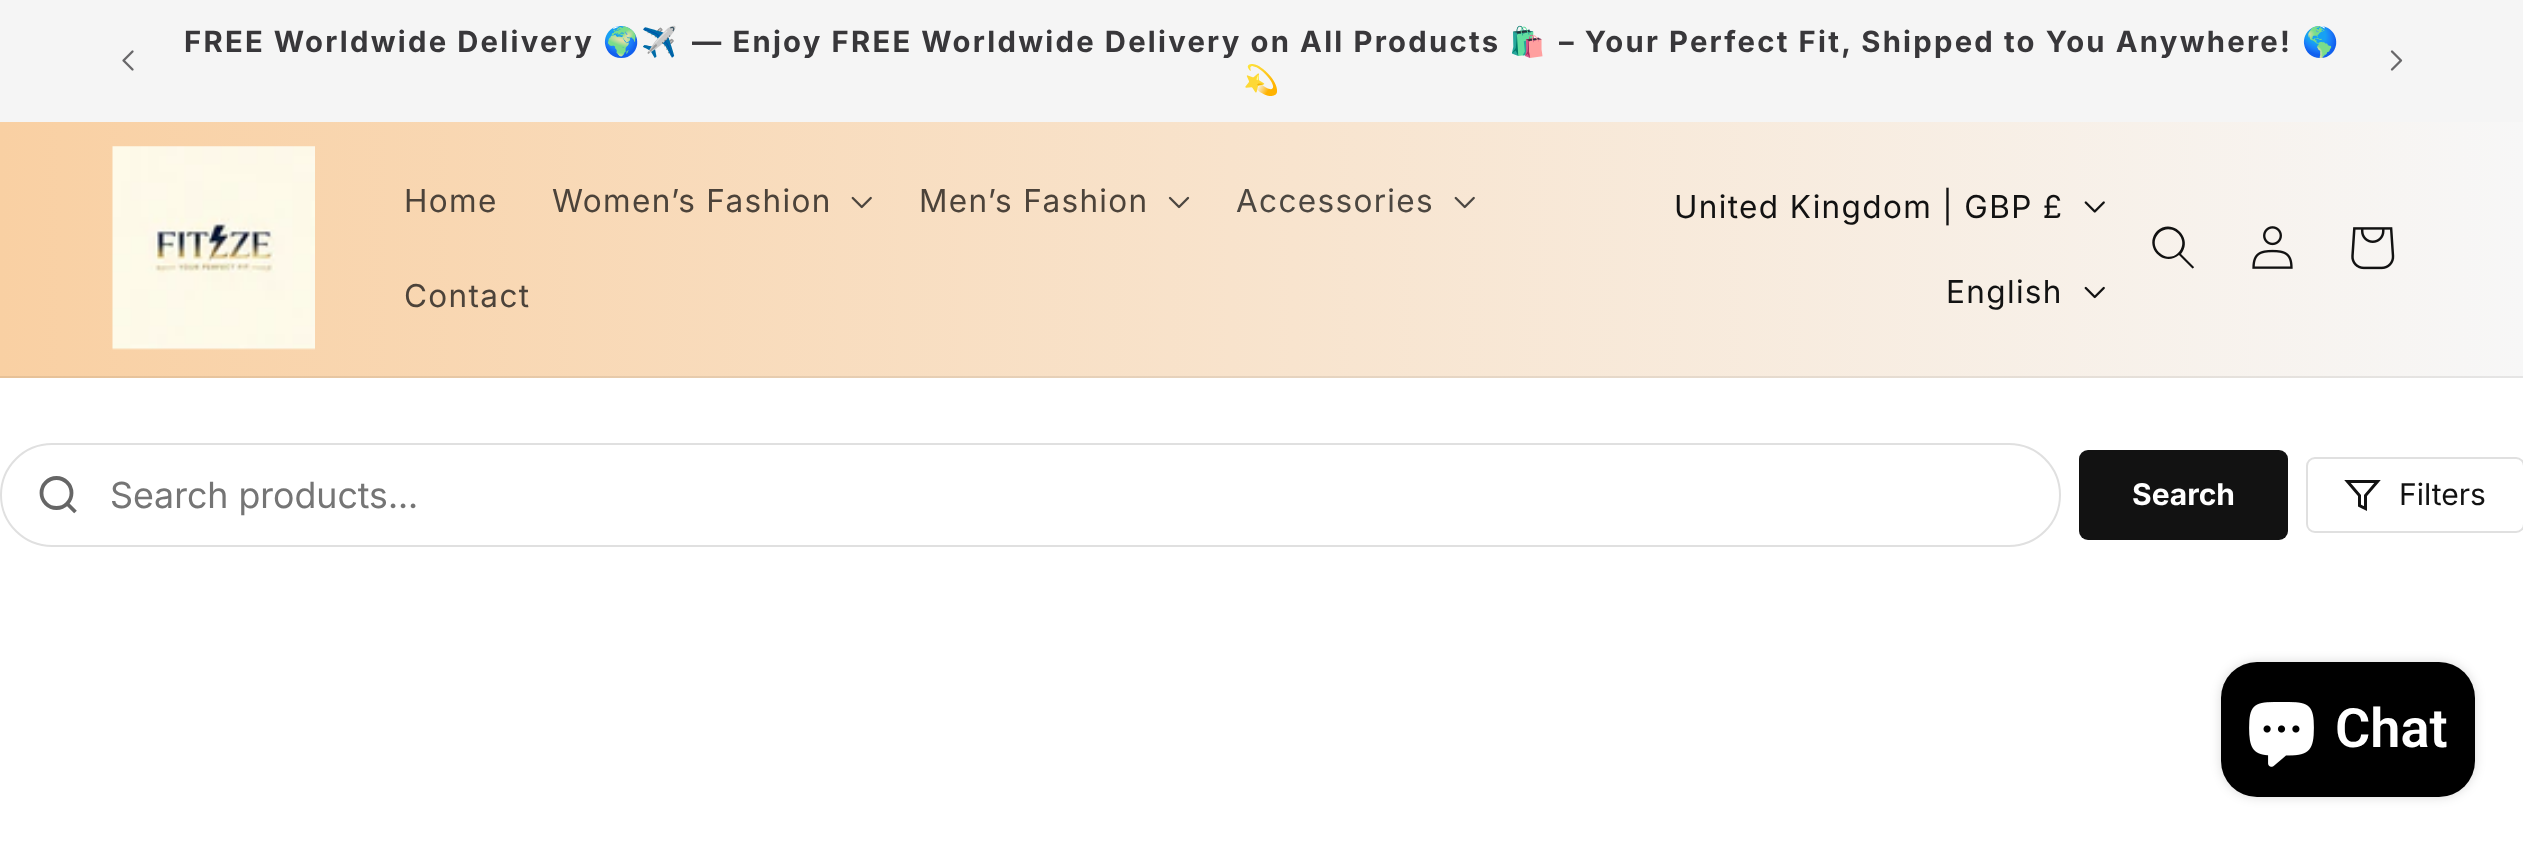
(async () => {
const canvas = document.querySelector("canvas")
canvas.width = 2523
canvas.height = 842
const c = canvas.getContext("2d")
c.miterLimit = 4
c.fontKerning = "normal"
function T(s,x,y){c.fillText(s,x,y)}
function R(x,y,w,h){c.fillRect(x,y,w,h)}
function Q(x,y,w,h,r){c.beginPath();c.roundRect(x,y,w,h,r);c.fill()}
async function I(src,x,y,w,h){const img=new Image();img.src=src;await img.decode();c.drawImage(img,x,y,w,h)}
let gradient, path
c.fillStyle="#fff"
R(0,0,2523,842)
c.fillStyle="#f5f5f5"
R(0,0,2523,122)
await I("1.png",122,50,12,21)
c.letterSpacing="2.25px"
c.wordSpacing="-0.25px"
c.font="bold 29.25px Inter"
c.fillStyle="#38373a"
T("FREE Worldwide Delivery",184,52)
c.wordSpacing="0px"
c.font="bold 29.25px Noto Color Emoji"
T("🌍✈️",603,52)
c.wordSpacing="-0.25px"
c.font="bold 29.25px Inter"
T("— Enjoy FREE Worldwide Delivery on All Products",692,52)
c.wordSpacing="0px"
c.font="bold 29.25px Noto Color Emoji"
T("🛍️",1509,52)
c.wordSpacing="-0.25px"
c.font="bold 29.25px Inter"
T("– Your Perfect Fit, Shipped to You Anywhere!",1559,52)
c.wordSpacing="0px"
c.font="bold 29.25px Noto Color Emoji"
T("🌎",2302,52)
T("💫",1243,90)
await I("2.png",2390,50,13,21)
gradient = c.createLinearGradient(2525,422,0,422)
gradient.addColorStop(0,"#f7f7f7")
gradient.addColorStop(1,"#f9d0a3")
c.fillStyle = gradient
R(0,122,2523,254)
gradient = c.createLinearGradient(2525,422,0,422)
gradient.addColorStop(0,"#e5e5e5")
gradient.addColorStop(1,"#e7c197")
c.fillStyle = gradient
R(0,376,2523,2)
await I("3.png",112,146,203,204)
c.letterSpacing="1.35px"
c.font="31.5px Inter"
c.fillStyle="#4c433a"
T("Home",404,212)
T("Women’s Fashion",552,212)
await I("4.png",851,196,21,13)
T("Men’s Fashion",919,212)
await I("5.png",1168,196,22,13)
c.fillStyle="#4c4741"
T("Accessories",1236,212)
await I("6.png",1454,196,21,13)
c.fillStyle="#4c433a"
T("Contact",404,307)
c.fillStyle="#121212"
T("United Kingdom | GBP £",1674,218)
await I("7.png",2084,201,21,12)
T("English",1946,303)
await I("8.png",2084,286,21,13)
path = new Path2D("M2178 253c-12 12-32-7-19-20c13-12 32 7 19 20m1 2c-16 13-36-9-22-24c15-14 37 7 24 23l13 13c0 1-2 2-2 1z")
c.fill(path,"evenodd")
await I("9.png",2252,226,41,43)
await I("10.png",2351,227,44,43)
c.beginPath()
c.roundRect(1,444,2059,102,51)
c.strokeStyle="#e0e0e0"
c.lineWidth=2
c.stroke()
c.beginPath()
c.arc(56.5,493,15,0,7)
c.strokeStyle="#666"
c.lineWidth=3.8
c.stroke()
path = new Path2D("M75.5 512l-8.5-8.5")
c.stroke(path)
c.letterSpacing="0px"
c.font="36px 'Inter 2'"
c.fillStyle="#757575"
T("Search products...",110,508)
c.fillStyle="#121212"
Q(2079,450,209,90,9)
c.font="bold 30px Inter"
c.fillStyle="#fff"
T("Search",2132,505)
c.beginPath()
c.roundRect(2307,458,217,74,8)
c.strokeStyle="#e0e0e0"
c.lineWidth=2
c.stroke()
path = new Path2D("M2377.5 481.5h-30l12 14v10l6 3v-13z")
c.strokeStyle="#121212"
c.lineWidth=3
c.stroke(path)
c.font="30px Inter"
c.fillStyle="#121212"
T("Filters",2399,505)
c.fillStyle="#00000026"
c.filter="blur(5.5px)"
c.beginPath()
c.roundRect(2221,662,254,135,36)
c.fill()
c.filter="none"
c.fillStyle="#000"
Q(2221,662,254,135,36)
await I("11.png",2249,702,65,65)
c.font="600 54px Roboto"
c.fillStyle="#fff"
T("Chat",2335,747)
})()
